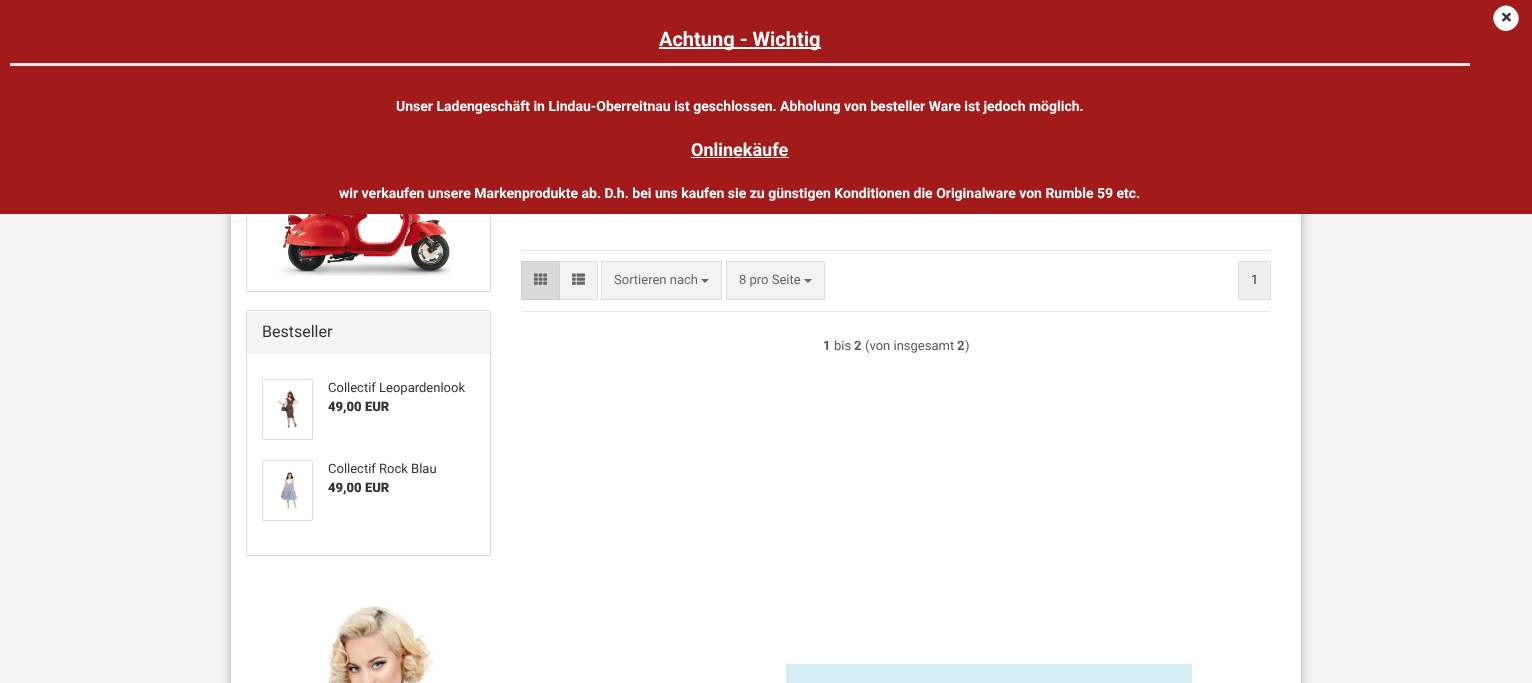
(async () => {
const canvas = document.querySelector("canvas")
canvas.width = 1532
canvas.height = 683
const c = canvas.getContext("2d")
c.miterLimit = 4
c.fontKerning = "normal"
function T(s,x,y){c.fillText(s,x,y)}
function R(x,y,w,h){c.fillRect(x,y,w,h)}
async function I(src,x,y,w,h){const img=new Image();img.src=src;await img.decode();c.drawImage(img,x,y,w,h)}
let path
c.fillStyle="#f3f3f3"
R(0,0,1532,683)
c.fillStyle="#0000004d"
c.filter="blur(5px)"
c.beginPath()
c.roundRect(231,-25,1070,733,10)
c.fill()
c.filter="none"
c.fillStyle="#fff"
R(231,214,1070,469)
c.fillStyle="#0000000d"
c.filter="blur(0.5px)"
c.beginPath()
c.roundRect(246,50,245,243,2)
c.fill()
c.filter="none"
c.fillStyle="#fff"
c.beginPath()
c.roundRect(246.5,49.5,244,242,1.5)
c.fill()
c.strokeStyle="#ddd"
c.stroke()
c.fillStyle="#a31a1a"
R(0,0,1532,214)
c.fillStyle="#fff"
path = new Path2D("M1497 9.5c12-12 29.5 6 18 17.5c-12 12-29.5-6-18-17.5z")
c.fill(path)
await I("1.png",1502,12,9,10)
c.fillStyle="#e7e7e7"
R(10,63,1460,3)
c.fillStyle="#fff"
R(659,47,162,2)
c.font="bold 20px Roboto"
T("Achtung - Wichtig",659,46)
c.font="bold 14px Roboto"
T("Unser Ladengeschäft in Lindau-Oberreitnau ist geschlossen. Abholung von besteller Ware ist jedoch möglich.",396,111)
c.font="bold 18px Roboto"
T("Onlinekäufe",691,156)
R(691,157,98,1)
c.font="bold 14px Roboto"
T("wir verkaufen unsere Markenprodukte ab. D.h. bei uns kaufen sie zu günstigen Konditionen die Originalware von Rumble 59 etc.",339,198)
c.fillStyle="#e7e7e7"
R(521,250,750,1)
R(521,311,750,1)
c.fillStyle="#f3f3f3"
c.beginPath()
c.rect(559.5,261.5,38,38)
c.fill()
c.stroke()
c.fillStyle="#dadada"
c.beginPath()
c.rect(521.5,261.5,38,38)
c.fill()
c.strokeStyle="#ccc"
c.stroke()
await I("2.png",534,273,13,12)
await I("3.png",572,273,13,12)
c.fillStyle="#f3f3f3"
c.beginPath()
c.rect(601.5,261.5,120,38)
c.fill()
c.strokeStyle="#ddd"
c.stroke()
c.font="13px Roboto"
c.fillStyle="#666"
T("Sortieren nach",614,284)
path = new Path2D("M701 279h8l-4 4z")
c.fill(path)
c.fillStyle="#f3f3f3"
c.beginPath()
c.rect(726.5,261.5,98,38)
c.fill()
c.stroke()
c.fillStyle="#666"
T("8 pro Seite",739,284)
path = new Path2D("M804 279h8l-4 4z")
c.fill(path)
c.fillStyle="#eee"
c.beginPath()
c.rect(1238.5,261.5,32,38)
c.fill()
c.stroke()
c.fillStyle="#333"
T("1",1251,284)
c.font="bold 13px Roboto"
c.fillStyle="#595959"
T("1",823,350)
c.font="13px Roboto"
T("bis",834,350)
c.font="bold 13px Roboto"
T("2",854,350)
c.font="13px Roboto"
T("(von insgesamt",865,350)
c.font="bold 13px Roboto"
T("2",957,350)
c.font="13px Roboto"
T(")",965,350)
await I("4.png",267,214,184,62)
c.fillStyle="#0000000d"
c.filter="blur(0.5px)"
c.beginPath()
c.roundRect(246,311,245,246,2)
c.fill()
c.filter="none"
c.fillStyle="#fff"
c.beginPath()
c.roundRect(246.5,310.5,244,245,1.5)
c.fill()
c.stroke()
c.fillStyle="#f5f5f5"
c.beginPath()
c.roundRect(247,311,243,43,[1,1,0,0])
c.fill()
c.fillStyle="#fff"
path = new Path2D("M248 312h242v1c0-1 0-2-1-2h-241c-1 0-1 1-1 2z")
c.fill(path)
c.font="16px Roboto"
c.fillStyle="#333"
T("Bestseller",262,337)
c.beginPath()
c.roundRect(262.5,379.5,50,60,1.5)
c.stroke()
await I("5.png",278,390,21,38)
c.font="13px Roboto"
T("Collectif Leopardenlook",328,392)
c.font="900 13px Roboto"
T("49,00 EUR",328,411)
c.beginPath()
c.roundRect(262.5,460.5,50,60,1.5)
c.stroke()
await I("6.png",280,472,18,37)
c.font="13px Roboto"
T("Collectif Rock Blau",328,473)
c.font="900 13px Roboto"
T("49,00 EUR",328,492)
await I("7.png",327,606,108,77)
c.fillStyle="#d5eef6"
R(786,664,406,19)
})()
